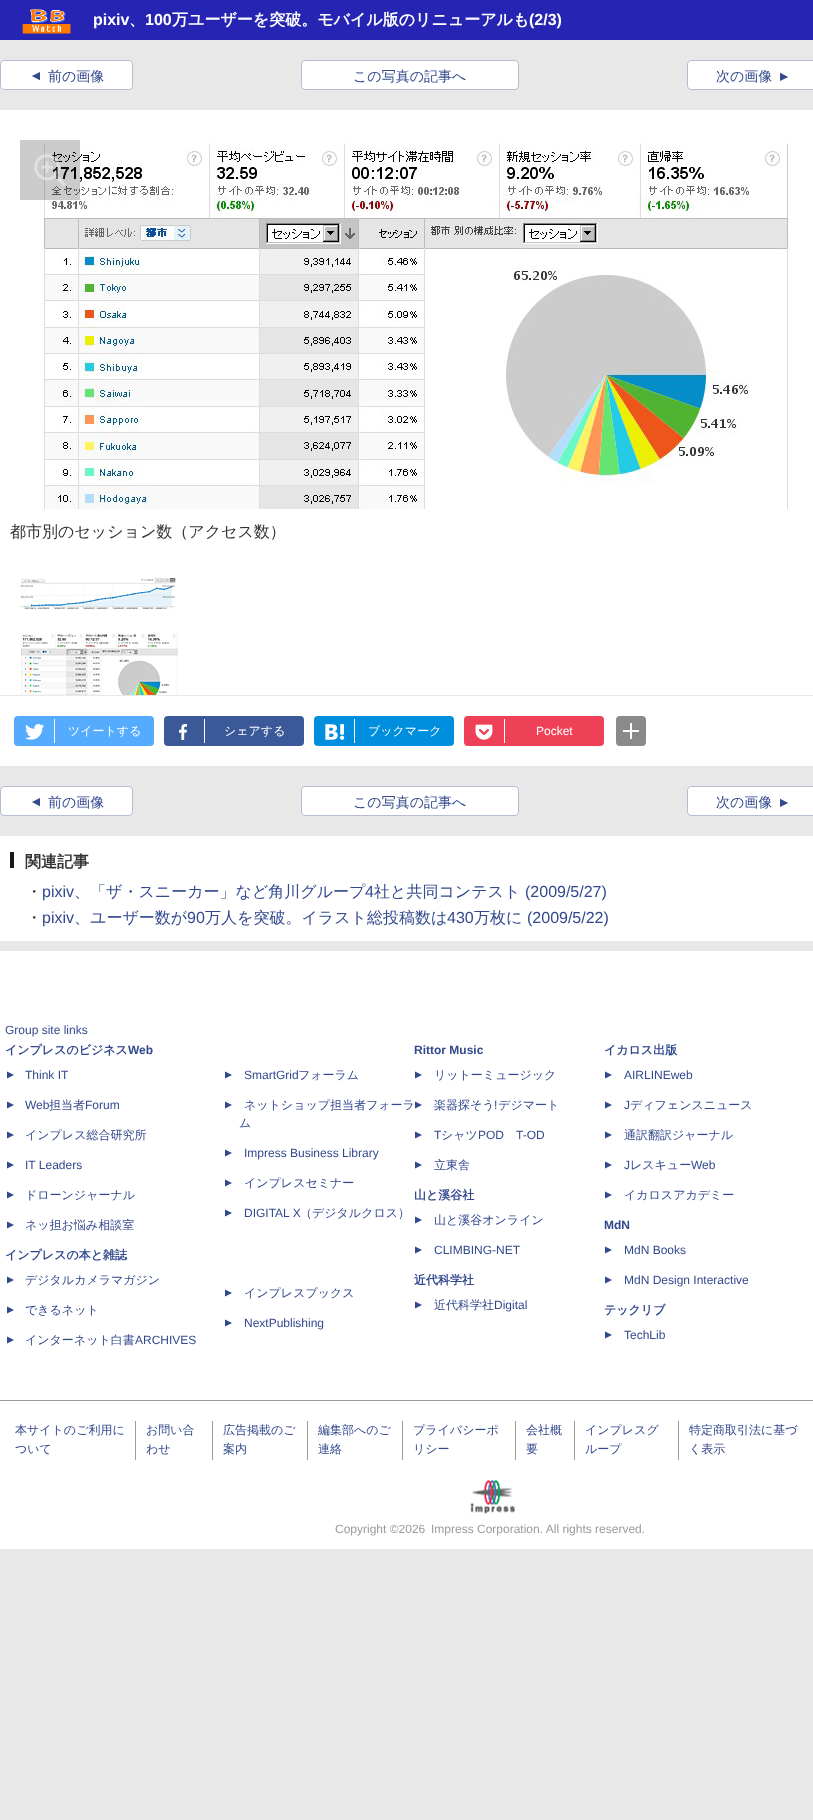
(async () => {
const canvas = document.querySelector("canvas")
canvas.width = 813
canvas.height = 1820
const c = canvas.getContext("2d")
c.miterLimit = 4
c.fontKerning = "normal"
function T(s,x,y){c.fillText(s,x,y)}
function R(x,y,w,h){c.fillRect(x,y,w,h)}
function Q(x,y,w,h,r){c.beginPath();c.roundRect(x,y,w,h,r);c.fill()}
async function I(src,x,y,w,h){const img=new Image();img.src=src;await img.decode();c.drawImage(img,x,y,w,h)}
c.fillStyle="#e8e8e8"
R(0,0,813,1820)
c.fillStyle="#2624b3"
R(0,0,813,40)
await I("1.png",22,9,49,25)
c.font="bold 16px Liberation Sans"
c.fillStyle="#fff"
T("pixiv",93,25)
c.font="bold 16px WenQuanYi Zen Hei"
T("、",129,25)
c.font="bold 16px Liberation Sans"
T("100",145,25)
c.font="bold 16px WenQuanYi Zen Hei"
T("万ユーザーを突破。モバイル版のリニューアルも",172,25)
c.font="bold 16px Liberation Sans"
T("(2/3)",529,25)
Q(0,60,133,30,4)
c.beginPath()
c.roundRect(.5,60.5,132,29,3.5)
c.strokeStyle="#32498e5c"
c.stroke()
c.font="14px Liberation Sans"
c.fillStyle="#33498e"
c.save()
c.translate(40,83)
c.rotate(-90 * Math.PI / 180)
c.fillText("▲",0,0)
c.restore()
c.font="500 14px WenQuanYi Zen Hei"
T("前の画像",48,81)
c.fillStyle="#fff"
Q(301,60,218,30,4)
c.beginPath()
c.roundRect(301.5,60.5,217,29,3.5)
c.stroke()
c.fillStyle="#33498e"
T("この写真の記事へ",353,81)
c.fillStyle="#fff"
Q(687,60,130,30,4)
c.beginPath()
c.roundRect(687.5,60.5,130,29,3.5)
c.stroke()
c.fillStyle="#33498e"
T("次の画像",716,81)
c.font="14px Liberation Sans"
c.save()
c.translate(780,70)
c.rotate(90 * Math.PI / 180)
c.fillText("▲",0,0)
c.restore()
c.fillStyle="#fff"
R(0,110,813,585)
await I("2.png",38,138,752,371)
c.fillStyle="#00000033"
R(20,140,60,60)
await I("3.png",34,154,32,32)
c.font="500 16px WenQuanYi Zen Hei"
c.fillStyle="#333"
T("都市別のセッション数（アクセス数）",10,537)
await I("4.png",20,577,157,33)
await I("5.png",21,633,157,62)
c.fillStyle="#fff"
R(0,696,813,70)
c.fillStyle="#55acfe"
Q(14,716,140,30,4)
await I("6.png",25,724,19,16)
c.fillStyle="#fff"
R(54,719,1,24)
c.font="500 12px WenQuanYi Zen Hei"
T("ツイートする",68,735)
c.fillStyle="#3b5998"
Q(164,716,140,30,4)
await I("7.png",179,724,8,16)
c.fillStyle="#fff"
R(204,719,1,24)
T("シェアする",224,735)
c.fillStyle="#008fde"
Q(314,716,140,30,4)
await I("8.png",325,724,20,16)
c.fillStyle="#fff"
R(354,719,1,24)
T("ブックマーク",368,735)
c.fillStyle="#ee4056"
Q(464,716,140,30,4)
await I("9.png",475,724,18,16)
c.fillStyle="#fff"
R(504,719,1,24)
c.font="12px Liberation Sans"
T("Pocket",536,735)
c.fillStyle="#8a8a8a"
Q(616,716,30,30,4)
await I("10.png",623,723,16,16)
c.fillStyle="#fff"
Q(0,786,133,30,4)
c.beginPath()
c.roundRect(.5,786.5,132,29,3.5)
c.stroke()
c.font="14px Liberation Sans"
c.fillStyle="#33498e"
c.save()
c.translate(40,809)
c.rotate(-90 * Math.PI / 180)
c.fillText("▲",0,0)
c.restore()
c.font="500 14px WenQuanYi Zen Hei"
T("前の画像",48,807)
c.fillStyle="#fff"
Q(301,786,218,30,4)
c.beginPath()
c.roundRect(301.5,786.5,217,29,3.5)
c.stroke()
c.fillStyle="#33498e"
T("この写真の記事へ",353,807)
c.fillStyle="#fff"
Q(687,786,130,30,4)
c.beginPath()
c.roundRect(687.5,786.5,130,29,3.5)
c.stroke()
c.fillStyle="#33498e"
T("次の画像",716,807)
c.font="14px Liberation Sans"
c.save()
c.translate(780,796)
c.rotate(90 * Math.PI / 180)
c.fillText("▲",0,0)
c.restore()
c.fillStyle="#fff"
R(0,836,813,105)
c.fillStyle="#181818"
R(10,852,4,16)
c.font="bold 16px WenQuanYi Zen Hei"
c.fillStyle="#333"
T("関連記事",25,867)
c.font="500 16px WenQuanYi Zen Hei"
T("・",26,897)
c.font="16px Liberation Sans"
c.fillStyle="#33498e"
T("pixiv",42,897)
c.font="500 16px WenQuanYi Zen Hei"
T("、「ザ・スニーカー」など角川グループ",74,897)
c.font="16px Liberation Sans"
T("4",365,897)
c.font="500 16px WenQuanYi Zen Hei"
T("社と共同コンテスト",374,897)
c.font="16px Liberation Sans"
T("(2009/5/27)",525,897)
c.font="500 16px WenQuanYi Zen Hei"
c.fillStyle="#333"
T("・",26,923)
c.font="16px Liberation Sans"
c.fillStyle="#33498e"
T("pixiv",42,923)
c.font="500 16px WenQuanYi Zen Hei"
T("、ユーザー数が",74,923)
c.font="16px Liberation Sans"
T("90",187,923)
c.font="500 16px WenQuanYi Zen Hei"
T("万人を突破。イラスト総投稿数は",205,923)
c.font="16px Liberation Sans"
T("430",447,923)
c.font="500 16px WenQuanYi Zen Hei"
T("万枚に",474,923)
c.font="16px Liberation Sans"
T("(2009/5/22)",527,923)
c.fillStyle="#fff"
R(0,951,813,598)
c.fillStyle="#9b9b9b"
R(0,1400,813,1)
c.font="12px Liberation Sans"
c.fillStyle="#33498e"
T("Group site links",5,1034)
c.font="bold 12px WenQuanYi Zen Hei"
T("インプレスのビジネス",5,1054)
c.font="bold 12px Liberation Sans"
T("Web",128,1054)
c.font="12px Liberation Sans"
c.save()
c.translate(7,1069)
c.rotate(90 * Math.PI / 180)
c.fillText("▲",0,0)
c.restore()
T("Think IT",25,1079)
c.save()
c.translate(7,1099)
c.rotate(90 * Math.PI / 180)
c.fillText("▲",0,0)
c.restore()
T("Web",25,1109)
c.font="500 12px WenQuanYi Zen Hei"
T("担当者",49,1109)
c.font="12px Liberation Sans"
T("Forum",85,1109)
c.save()
c.translate(7,1129)
c.rotate(90 * Math.PI / 180)
c.fillText("▲",0,0)
c.restore()
c.font="500 12px WenQuanYi Zen Hei"
T("インプレス総合研究所",25,1139)
c.font="12px Liberation Sans"
c.save()
c.translate(7,1159)
c.rotate(90 * Math.PI / 180)
c.fillText("▲",0,0)
c.restore()
T("IT Leaders",25,1169)
c.save()
c.translate(7,1189)
c.rotate(90 * Math.PI / 180)
c.fillText("▲",0,0)
c.restore()
c.font="500 12px WenQuanYi Zen Hei"
T("ドローンジャーナル",25,1199)
c.font="12px Liberation Sans"
c.save()
c.translate(7,1219)
c.rotate(90 * Math.PI / 180)
c.fillText("▲",0,0)
c.restore()
c.font="500 12px WenQuanYi Zen Hei"
T("ネッ担お悩み相談室",25,1229)
c.font="bold 12px WenQuanYi Zen Hei"
T("インプレスの本と雑誌",5,1259)
c.font="12px Liberation Sans"
c.save()
c.translate(7,1274)
c.rotate(90 * Math.PI / 180)
c.fillText("▲",0,0)
c.restore()
c.font="500 12px WenQuanYi Zen Hei"
T("デジタルカメラマガジン",25,1284)
c.font="12px Liberation Sans"
c.save()
c.translate(7,1304)
c.rotate(90 * Math.PI / 180)
c.fillText("▲",0,0)
c.restore()
c.font="500 12px WenQuanYi Zen Hei"
T("できるネット",25,1314)
c.font="12px Liberation Sans"
c.save()
c.translate(7,1334)
c.rotate(90 * Math.PI / 180)
c.fillText("▲",0,0)
c.restore()
c.font="500 12px WenQuanYi Zen Hei"
T("インターネット白書",25,1344)
c.font="12px Liberation Sans"
T("ARCHIVES",135,1344)
c.save()
c.translate(225,1069)
c.rotate(90 * Math.PI / 180)
c.fillText("▲",0,0)
c.restore()
T("SmartGrid",244,1079)
c.font="500 12px WenQuanYi Zen Hei"
T("フォーラム",298,1079)
c.font="12px Liberation Sans"
c.save()
c.translate(225,1099)
c.rotate(90 * Math.PI / 180)
c.fillText("▲",0,0)
c.restore()
c.font="500 12px WenQuanYi Zen Hei"
T("ネットショップ担当者フォーラ",244,1109)
T("ム",239,1127)
c.font="12px Liberation Sans"
c.save()
c.translate(225,1147)
c.rotate(90 * Math.PI / 180)
c.fillText("▲",0,0)
c.restore()
T("Impress Business Library",244,1157)
c.save()
c.translate(225,1177)
c.rotate(90 * Math.PI / 180)
c.fillText("▲",0,0)
c.restore()
c.font="500 12px WenQuanYi Zen Hei"
T("インプレスセミナー",244,1187)
c.font="12px Liberation Sans"
c.save()
c.translate(225,1207)
c.rotate(90 * Math.PI / 180)
c.fillText("▲",0,0)
c.restore()
T("DIGITAL X",244,1217)
c.font="500 12px WenQuanYi Zen Hei"
T("（デジタルクロス）",300,1217)
c.font="12px Liberation Sans"
c.save()
c.translate(225,1287)
c.rotate(90 * Math.PI / 180)
c.fillText("▲",0,0)
c.restore()
c.font="500 12px WenQuanYi Zen Hei"
T("インプレスブックス",244,1297)
c.font="12px Liberation Sans"
c.save()
c.translate(225,1317)
c.rotate(90 * Math.PI / 180)
c.fillText("▲",0,0)
c.restore()
T("NextPublishing",244,1327)
c.font="bold 12px Liberation Sans"
T("Rittor Music",414,1054)
c.font="12px Liberation Sans"
c.save()
c.translate(415,1069)
c.rotate(90 * Math.PI / 180)
c.fillText("▲",0,0)
c.restore()
c.font="500 12px WenQuanYi Zen Hei"
T("リットーミュージック",434,1079)
T("楽器探そう デジマート",434,1109)
c.font="12px Liberation Sans"
c.save()
c.translate(415,1099)
c.rotate(90 * Math.PI / 180)
c.fillText("▲",0,0)
c.restore()
T("!",494,1109)
c.save()
c.translate(415,1129)
c.rotate(90 * Math.PI / 180)
c.fillText("▲",0,0)
c.restore()
T("T",434,1139)
c.font="500 12px WenQuanYi Zen Hei"
T("シャツ",441,1139)
c.font="12px Liberation Sans"
T("POD",478,1139)
T("T-OD",516,1139)
c.save()
c.translate(415,1159)
c.rotate(90 * Math.PI / 180)
c.fillText("▲",0,0)
c.restore()
c.font="500 12px WenQuanYi Zen Hei"
T("立東舎",434,1169)
c.font="bold 12px WenQuanYi Zen Hei"
T("山と溪谷社",414,1199)
c.font="12px Liberation Sans"
c.save()
c.translate(415,1214)
c.rotate(90 * Math.PI / 180)
c.fillText("▲",0,0)
c.restore()
c.font="500 12px WenQuanYi Zen Hei"
T("山と溪谷オンライン",434,1224)
c.font="12px Liberation Sans"
c.save()
c.translate(415,1244)
c.rotate(90 * Math.PI / 180)
c.fillText("▲",0,0)
c.restore()
T("CLIMBING-NET",434,1254)
c.font="bold 12px WenQuanYi Zen Hei"
T("近代科学社",414,1284)
c.font="12px Liberation Sans"
c.save()
c.translate(415,1299)
c.rotate(90 * Math.PI / 180)
c.fillText("▲",0,0)
c.restore()
c.font="500 12px WenQuanYi Zen Hei"
T("近代科学社",434,1309)
c.font="12px Liberation Sans"
T("Digital",494,1309)
c.font="bold 12px WenQuanYi Zen Hei"
T("イカロス出版",604,1054)
c.font="12px Liberation Sans"
c.save()
c.translate(605,1069)
c.rotate(90 * Math.PI / 180)
c.fillText("▲",0,0)
c.restore()
T("AIRLINEweb",624,1079)
c.save()
c.translate(605,1099)
c.rotate(90 * Math.PI / 180)
c.fillText("▲",0,0)
c.restore()
T("J",624,1109)
c.font="500 12px WenQuanYi Zen Hei"
T("ディフェンスニュース",630,1109)
c.font="12px Liberation Sans"
c.save()
c.translate(605,1129)
c.rotate(90 * Math.PI / 180)
c.fillText("▲",0,0)
c.restore()
c.font="500 12px WenQuanYi Zen Hei"
T("通訳翻訳ジャーナル",624,1139)
c.font="12px Liberation Sans"
c.save()
c.translate(605,1159)
c.rotate(90 * Math.PI / 180)
c.fillText("▲",0,0)
c.restore()
T("J",624,1169)
c.font="500 12px WenQuanYi Zen Hei"
T("レスキュー",630,1169)
c.font="12px Liberation Sans"
T("Web",691,1169)
c.save()
c.translate(605,1189)
c.rotate(90 * Math.PI / 180)
c.fillText("▲",0,0)
c.restore()
c.font="500 12px WenQuanYi Zen Hei"
T("イカロスアカデミー",624,1199)
c.font="bold 12px Liberation Sans"
T("MdN",604,1229)
c.font="12px Liberation Sans"
c.save()
c.translate(605,1244)
c.rotate(90 * Math.PI / 180)
c.fillText("▲",0,0)
c.restore()
T("MdN Books",624,1254)
c.save()
c.translate(605,1274)
c.rotate(90 * Math.PI / 180)
c.fillText("▲",0,0)
c.restore()
T("MdN Design Interactive",624,1284)
c.font="bold 12px WenQuanYi Zen Hei"
T("テックリブ",604,1314)
c.font="12px Liberation Sans"
c.save()
c.translate(605,1329)
c.rotate(90 * Math.PI / 180)
c.fillText("▲",0,0)
c.restore()
T("TechLib",624,1339)
c.fillStyle="#9b9b9b"
R(135,1421,1,39)
c.font="500 12px WenQuanYi Zen Hei"
c.fillStyle="#33498e"
T("本サイトのご利用に",15,1434)
T("ついて",15,1453)
c.fillStyle="#9b9b9b"
R(212,1421,1,39)
c.fillStyle="#33498e"
T("お問い合",146,1434)
T("わせ",146,1453)
c.fillStyle="#9b9b9b"
R(307,1421,1,39)
c.fillStyle="#33498e"
T("広告掲載のご",223,1434)
T("案内",223,1453)
c.fillStyle="#9b9b9b"
R(402,1421,1,39)
c.fillStyle="#33498e"
T("編集部へのご",318,1434)
T("連絡",318,1453)
c.fillStyle="#9b9b9b"
R(515,1421,1,39)
c.fillStyle="#33498e"
T("プライバシーポ",413,1434)
T("リシー",413,1453)
c.fillStyle="#9b9b9b"
R(574,1421,1,39)
c.fillStyle="#33498e"
T("会社概",526,1434)
T("要",526,1453)
c.fillStyle="#9b9b9b"
R(678,1421,1,39)
c.fillStyle="#33498e"
T("インプレスグ",585,1434)
T("ループ",585,1453)
T("特定商取引法に基づ",689,1434)
T("く表示",689,1453)
await I("11.png",470,1480,45,34)
c.font="12px Liberation Sans"
c.fillStyle="#9b9b9b"
T("Copyright ©2026",335,1533)
T("Impress Corporation. All rights reserved.",431,1533)
})()
